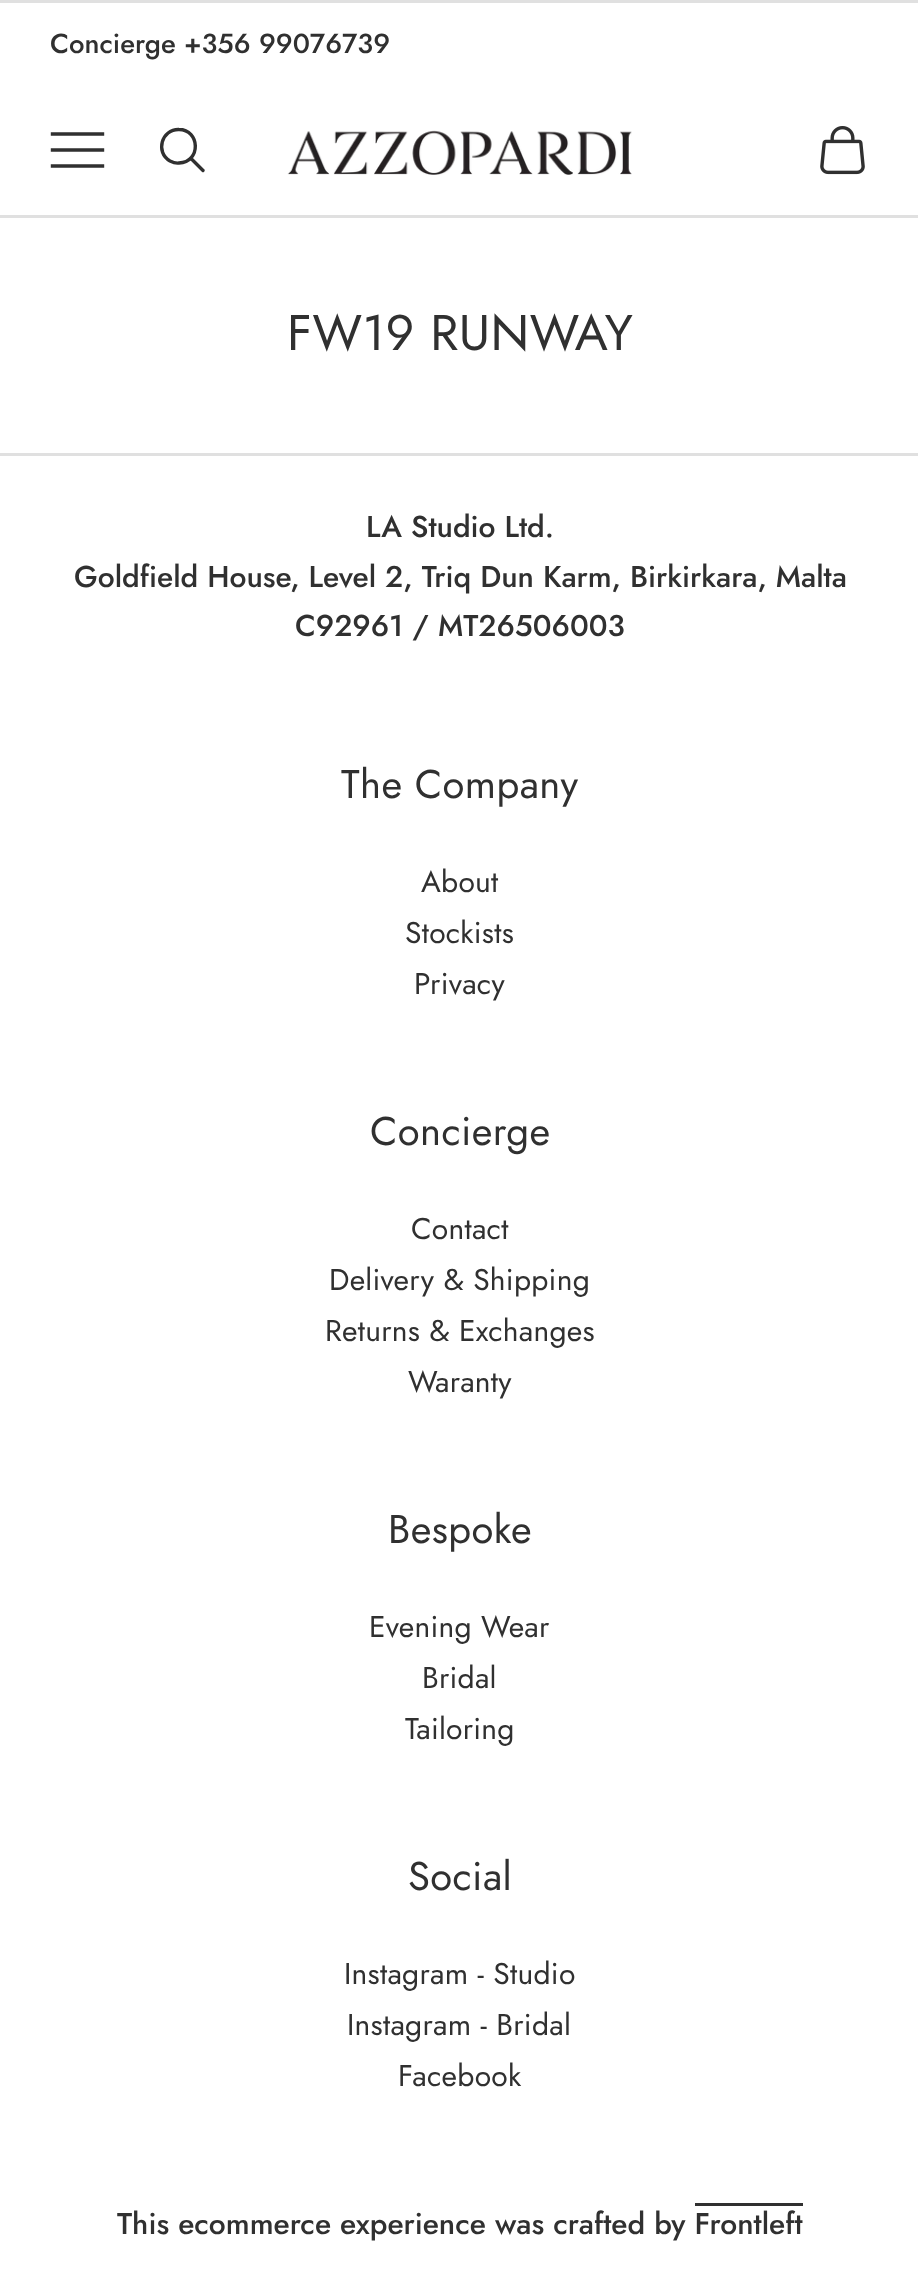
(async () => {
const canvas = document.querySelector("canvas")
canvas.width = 918
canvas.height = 2269
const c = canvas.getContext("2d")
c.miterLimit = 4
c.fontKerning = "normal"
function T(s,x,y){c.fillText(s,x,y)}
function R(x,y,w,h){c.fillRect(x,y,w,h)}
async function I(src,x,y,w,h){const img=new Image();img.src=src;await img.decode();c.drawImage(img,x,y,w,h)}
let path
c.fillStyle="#fff"
R(0,0,918,2269)
c.fillStyle="#e0e0e0"
R(0,0,918,3)
c.font="500 27.5px Jost"
c.fillStyle="#303030"
T("Concierge +356 99076739",50,53)
c.fillStyle="#e0e0e0"
R(0,215,918,3)
path = new Path2D("M52.5 166h50m-50-16h50m-50-16h50")
c.strokeStyle="#303030"
c.lineWidth=3.4
c.lineCap="square"
c.stroke(path)
path = new Path2D("M179 129.5c-17.5-.5-24 23-9 31.5c3 1.5 6 2.5 9 2c22.5-1 21-33.5 0-33.5z")
c.lineCap="butt"
c.stroke(path)
path = new Path2D("M191.5 159l11.5 11.5")
c.lineCap="round"
c.stroke(path)
await I("1.png",287,130,345,45)
await I("2.png",820,126,45,49)
c.letterSpacing="0.5px"
c.font="50px Jost"
c.fillStyle="#303030"
T("FW19 RUNWAY",287,350)
c.fillStyle="#e0e0e0"
R(0,453,918,3)
c.letterSpacing="0px"
c.font="500 30px Jost"
c.fillStyle="#303030"
T("LA Studio Ltd.",366,537)
T("Goldfield House, Level 2, Triq Dun Karm, Birkirkara, Malta",74,587)
T("C92961 / MT26506003",295,636)
c.letterSpacing="0.4px"
c.font="40px Jost"
T("The Company",341,798)
c.letterSpacing="0.25px"
c.font="30px Jost"
T("About",421,892)
T("Stockists",405,943)
T("Privacy",414,994)
c.letterSpacing="0.4px"
c.font="40px Jost"
T("Concierge",370,1145)
c.letterSpacing="0.25px"
c.font="30px Jost"
T("Contact",411,1239)
T("Delivery & Shipping",329,1290)
T("Returns & Exchanges",325,1341)
T("Waranty",408,1392)
c.letterSpacing="0.4px"
c.font="40px Jost"
T("Bespoke",388,1543)
c.letterSpacing="0.25px"
c.font="30px Jost"
T("Evening Wear",369,1637)
T("Bridal",422,1688)
T("Tailoring",405,1739)
c.letterSpacing="0.4px"
c.font="40px Jost"
T("Social",408,1890)
c.letterSpacing="0.25px"
c.font="30px Jost"
T("Instagram - Studio",344,1984)
T("Instagram - Bridal",347,2035)
T("Facebook",398,2086)
R(695,2203,108,3)
c.letterSpacing="0px"
c.font="500 30px Jost"
T("This ecommerce experience was crafted by Frontleft",117,2234)
})()
